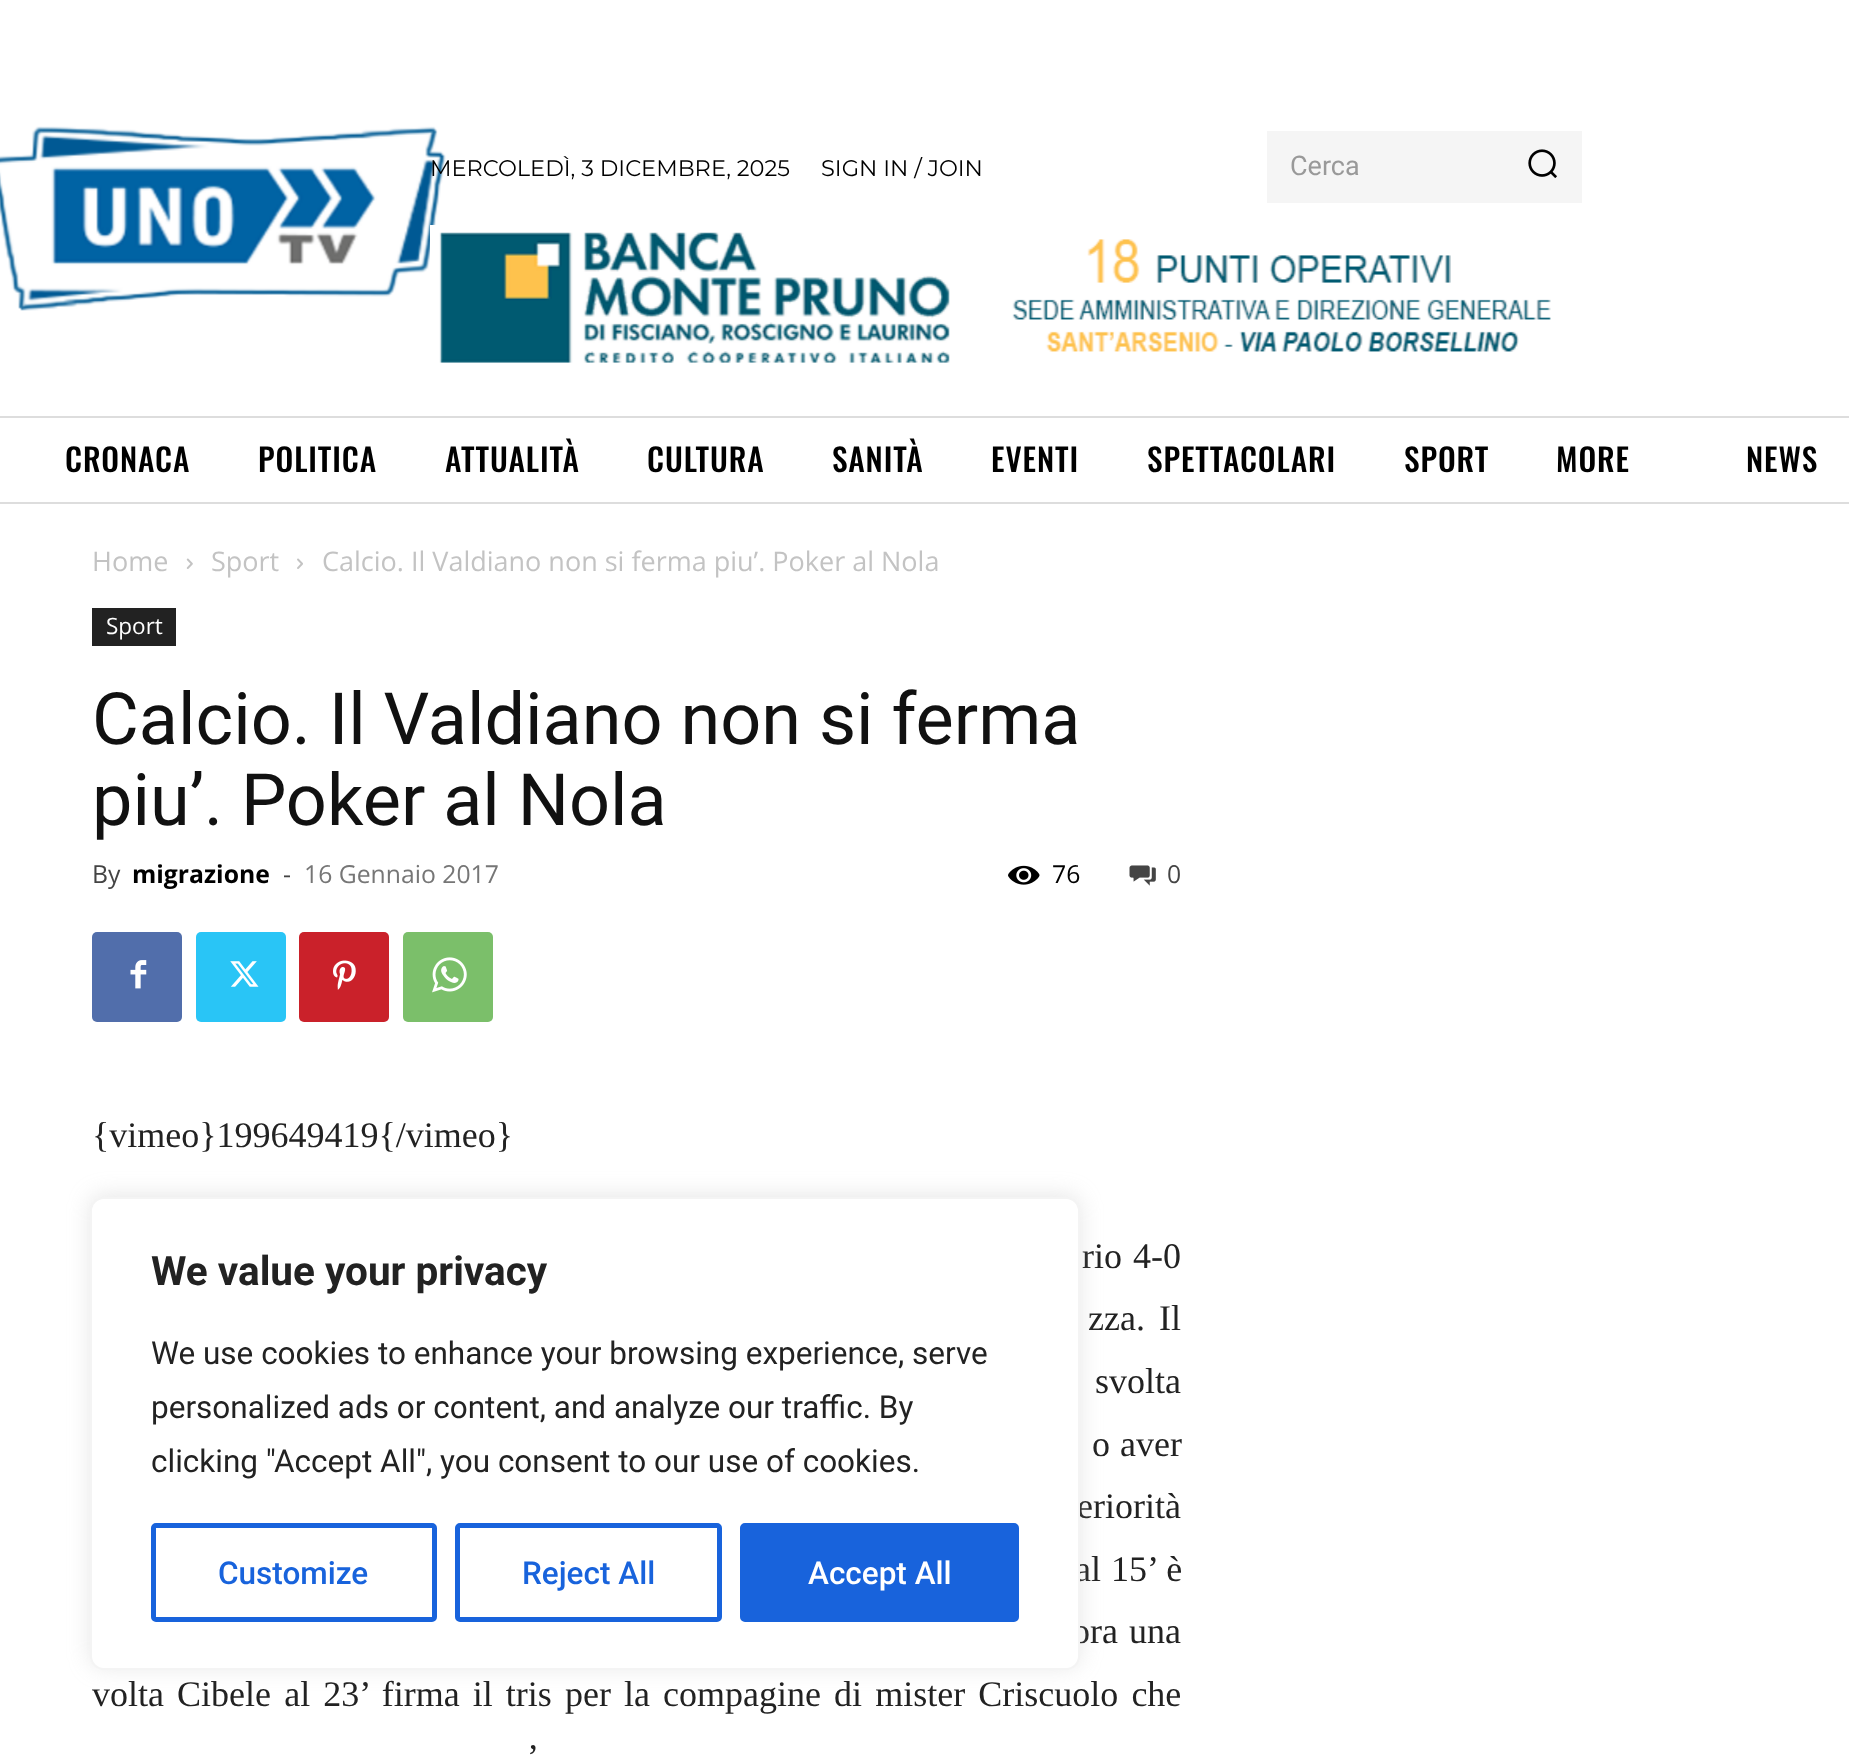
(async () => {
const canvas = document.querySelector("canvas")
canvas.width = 1849
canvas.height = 1758
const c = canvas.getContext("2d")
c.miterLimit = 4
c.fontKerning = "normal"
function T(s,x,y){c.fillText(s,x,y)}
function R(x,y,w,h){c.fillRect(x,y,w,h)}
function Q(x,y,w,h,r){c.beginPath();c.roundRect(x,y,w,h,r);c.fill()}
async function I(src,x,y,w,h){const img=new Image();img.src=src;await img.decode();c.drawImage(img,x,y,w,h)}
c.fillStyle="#fff"
R(0,0,1849,1758)
await I("1.png",0,126,446,185)
c.font="100 22.5px Montserrat"
c.fillStyle="#000"
T("MERCOLEDÌ, 3 DICEMBRE, 2025",430,176)
T("SIGN IN / JOIN",821,176)
c.fillStyle="#f5f5f5"
R(1267,131,315,72)
c.font="27px Roboto"
c.fillStyle="#999"
T("Cerca",1290,175)
await I("2.png",1528,149,29,29)
await I("3.png",430,225,1121,138)
c.fillStyle="#ddd"
R(0,416,1849,2)
R(0,502,1849,2)
c.letterSpacing="0.9px"
c.font="500 31.5px Oswald"
c.fillStyle="#000"
T("CRONACA",65,472)
T("POLITICA",258,472)
T("ATTUALITÀ",445,472)
T("CULTURA",647,472)
T("SANITÀ",832,472)
T("EVENTI",991,472)
T("SPETTACOLARI",1147,472)
T("SPORT",1404,472)
T("MORE",1556,472)
T("NEWS",1746,472)
c.letterSpacing="0px"
c.font="27px Open Sans"
c.fillStyle="#c3c3c3"
T("Home",92,571)
await I("4.png",186,558,7,11)
T("Sport",211,571)
await I("5.png",297,558,6,11)
T("Calcio. Il Valdiano non si ferma piu’. Poker al Nola",322,571)
c.fillStyle="#222"
R(92,608,84,38)
c.font="22.5px Open Sans"
c.fillStyle="#fff"
T("Sport",106,634)
c.font="72px Roboto"
c.fillStyle="#111"
T("Calcio. Il Valdiano non si ferma",92,744)
T("piu’. Poker al Nola",92,825)
c.font="24.75px Open Sans"
c.fillStyle="#444"
T("By",92,883)
c.font="bold 24.75px Open Sans"
c.fillStyle="#000"
T("migrazione",132,883)
c.font="24.75px Open Sans"
c.fillStyle="#444"
T("-",283,883)
c.fillStyle="#767676"
T("16 Gennaio 2017",304,883)
await I("6.png",1008,865,32,20)
c.fillStyle="#000"
T("76",1052,883)
await I("7.png",1129,865,27,21)
c.fillStyle="#444"
T("0",1167,883)
c.fillStyle="#516eab"
Q(92,932,90,90,5)
await I("8.png",130,960,17,29)
c.fillStyle="#29c5f6"
Q(196,932,90,90,5)
await I("9.png",230,961,29,26)
c.fillStyle="#ca212a"
Q(299,932,90,90,5)
await I("10.png",333,960,23,30)
c.fillStyle="#7bbf6a"
Q(403,932,90,90,5)
await I("11.png",432,957,35,36)
c.font="36px Liberation Serif"
c.fillStyle="#222"
T("{vimeo}199649419{/vimeo}",92,1147)
c.wordSpacing="2px"
T("rio 4-0",1082,1268)
c.wordSpacing="5px"
T("zza. Il",1088,1330)
T("svolta",1095,1393)
c.wordSpacing="1px"
T("o aver",1092,1456)
c.wordSpacing="10px"
T("eriorità",1077,1518)
c.wordSpacing="1px"
T("al 15’ è",1075,1581)
c.wordSpacing="2px"
T("ora una",1072,1643)
c.wordSpacing="4.1px"
T("volta Cibele al 23’ firma il tris per la compagine di mister Criscuolo che",92,1706)
c.wordSpacing="2px"
T("’",527,1769)
c.fillStyle="#acabab4d"
c.filter="blur(11px)"
c.beginPath()
c.roundRect(90,1195,990,472,14)
c.fill()
c.filter="none"
c.fillStyle="#fff"
c.beginPath()
c.roundRect(91,1198,988,471,13)
c.fill()
c.strokeStyle="#f4f4f4"
c.lineWidth=2
c.stroke()
c.wordSpacing="0px"
c.font="bold 40.5px Roboto"
c.fillStyle="#222"
T("We value your privacy",151,1285)
c.font="31.5px Roboto"
T("We use cookies to enhance your browsing experience, serve",151,1364)
T("personalized ads or content, and analyze our traffic. By",151,1418)
T("clicking \"Accept All\", you consent to our use of cookies.",151,1472)
c.beginPath()
c.roundRect(153.5,1525.5,281,94,2.5)
c.strokeStyle="#1863dc"
c.lineWidth=5
c.stroke()
c.font="500 31.5px Roboto"
c.fillStyle="#1863dc"
T("Customize",218,1584)
c.beginPath()
c.roundRect(457.5,1525.5,262,94,2.5)
c.stroke()
T("Reject All",522,1584)
c.beginPath()
c.roundRect(742.5,1525.5,274,94,2.5)
c.fill()
c.stroke()
c.fillStyle="#fff"
T("Accept All",808,1584)
})()
